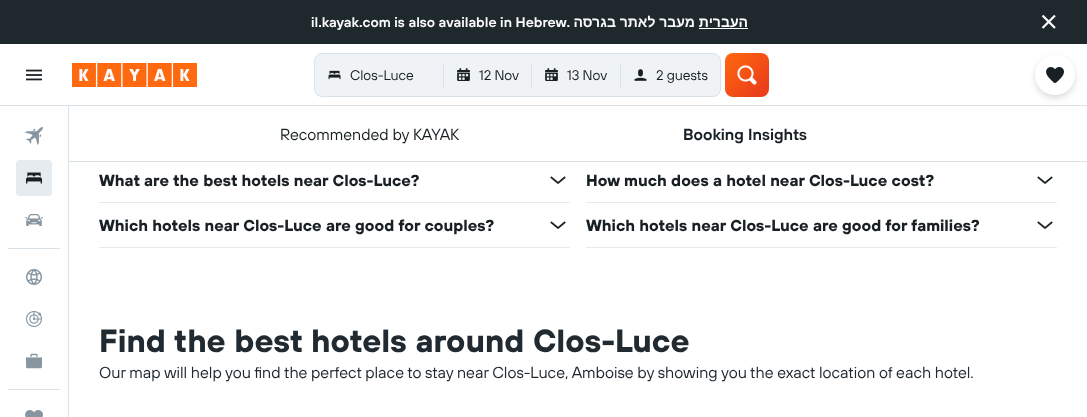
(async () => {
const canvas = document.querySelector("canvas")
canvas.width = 1087
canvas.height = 417
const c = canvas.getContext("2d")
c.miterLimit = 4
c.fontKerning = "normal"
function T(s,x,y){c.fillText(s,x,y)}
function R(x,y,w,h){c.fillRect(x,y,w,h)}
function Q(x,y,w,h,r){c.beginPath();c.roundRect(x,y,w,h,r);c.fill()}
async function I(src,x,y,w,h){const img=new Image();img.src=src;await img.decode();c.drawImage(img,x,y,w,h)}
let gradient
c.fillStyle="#fff"
R(0,0,1087,417)
c.fillStyle="#1f282d"
R(0,0,1087,44)
c.font="600 14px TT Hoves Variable"
c.fillStyle="#f9fafb"
T("il.kayak.com is also available in Hebrew.",311,27)
c.direction="rtl"
c.font="bold 14px Liberation Sans"
T("מעבר לאתר בגרסה",695,27)
c.fillStyle="#fff"
T("העברית",748,27)
R(699,28,49,1)
await I("1.png",1041,14,15,15)
c.fillStyle="#d9e2e8"
R(0,105,1087,1)
await I("2.png",26,69,16,12)
await I("3.png",72,63,125,24)
c.fillStyle="#f0f3f5"
c.beginPath()
c.roundRect(314.5,53.5,406,43,7.5)
c.fill()
c.strokeStyle="#d9e2e8"
c.stroke()
await I("4.png",328,70,13,10)
c.direction="ltr"
c.font="14px TT Hoves Variable"
c.fillStyle="#192024"
T("Clos-Luce",350,80)
c.fillStyle="#d9e2e8"
R(443,63,1,24)
await I("5.png",457,68,13,13)
c.fillStyle="#192024"
T("12 Nov",479,80)
c.fillStyle="#d9e2e8"
R(531,63,1,24)
await I("5.png",545,68,13,13)
c.fillStyle="#192024"
T("13 Nov",567,80)
c.fillStyle="#d9e2e8"
R(620,63,1,24)
await I("6.png",634,69,13,12)
c.fillStyle="#192024"
T("2 guests",656,80)
gradient = c.createLinearGradient(725,53,769,97)
gradient.addColorStop(0,"#ff690f")
gradient.addColorStop(1,"#e8381b")
c.fillStyle = gradient
Q(725,53,44,44,8)
await I("7.png",737,65,20,20)
c.fillStyle="#19202429"
c.filter="blur(3px)"
c.beginPath()
c.roundRect(1035,58,40,40,20)
c.fill()
c.filter="none"
c.fillStyle="#fff"
c.beginPath()
c.arc(1055,75,20,0,7)
c.fill()
await I("8.png",1046,67,18,16)
c.fillStyle="#d9e2e8"
R(68,106,1,311)
await I("9.png",25,127,18,18)
c.fillStyle="#e6ebef"
Q(16,160,36,36,4)
await I("10.png",26,172,16,12)
await I("11.png",25,213,18,13)
c.fillStyle="#d9e2e8"
R(8,248,52,1)
await I("12.png",26,269,16,16)
await I("13.png",26,311,16,16)
await I("14.png",26,353,16,16)
R(8,389,52,1)
await I("15.png",25,410,18,7)
R(69,161,1018,1)
c.font="16px TT Hoves Variable"
c.fillStyle="#192024"
T("Recommended by KAYAK",280,140)
c.font="600 16px TT Hoves Variable"
T("Booking Insights",683,140)
c.fillStyle="#e5ebf0"
R(99,202,471,1)
c.font="bold 16px TT Hoves Variable"
c.fillStyle="#192024"
T("What are the best hotels near Clos-Luce?",99,186)
await I("16.png",550,176,16,8)
c.fillStyle="#e5ebf0"
R(586,202,471,1)
c.fillStyle="#192024"
T("How much does a hotel near Clos-Luce cost?",586,186)
await I("16.png",1037,176,16,8)
c.fillStyle="#e5ebf0"
R(99,247,471,1)
c.fillStyle="#192024"
T("Which hotels near Clos-Luce are good for couples?",99,231)
await I("16.png",550,221,16,8)
c.fillStyle="#e5ebf0"
R(586,247,471,1)
c.fillStyle="#192024"
T("Which hotels near Clos-Luce are good for families?",586,231)
await I("16.png",1037,221,16,8)
c.font="bold 32px TT Hoves Variable"
c.fillStyle="#212a30"
T("Find the best hotels around Clos-Luce",99,352)
c.font="16px TT Hoves Variable"
T("Our map will help you find the perfect place to stay near Clos-Luce, Amboise by showing you the exact location of each hotel.",99,378)
})()
